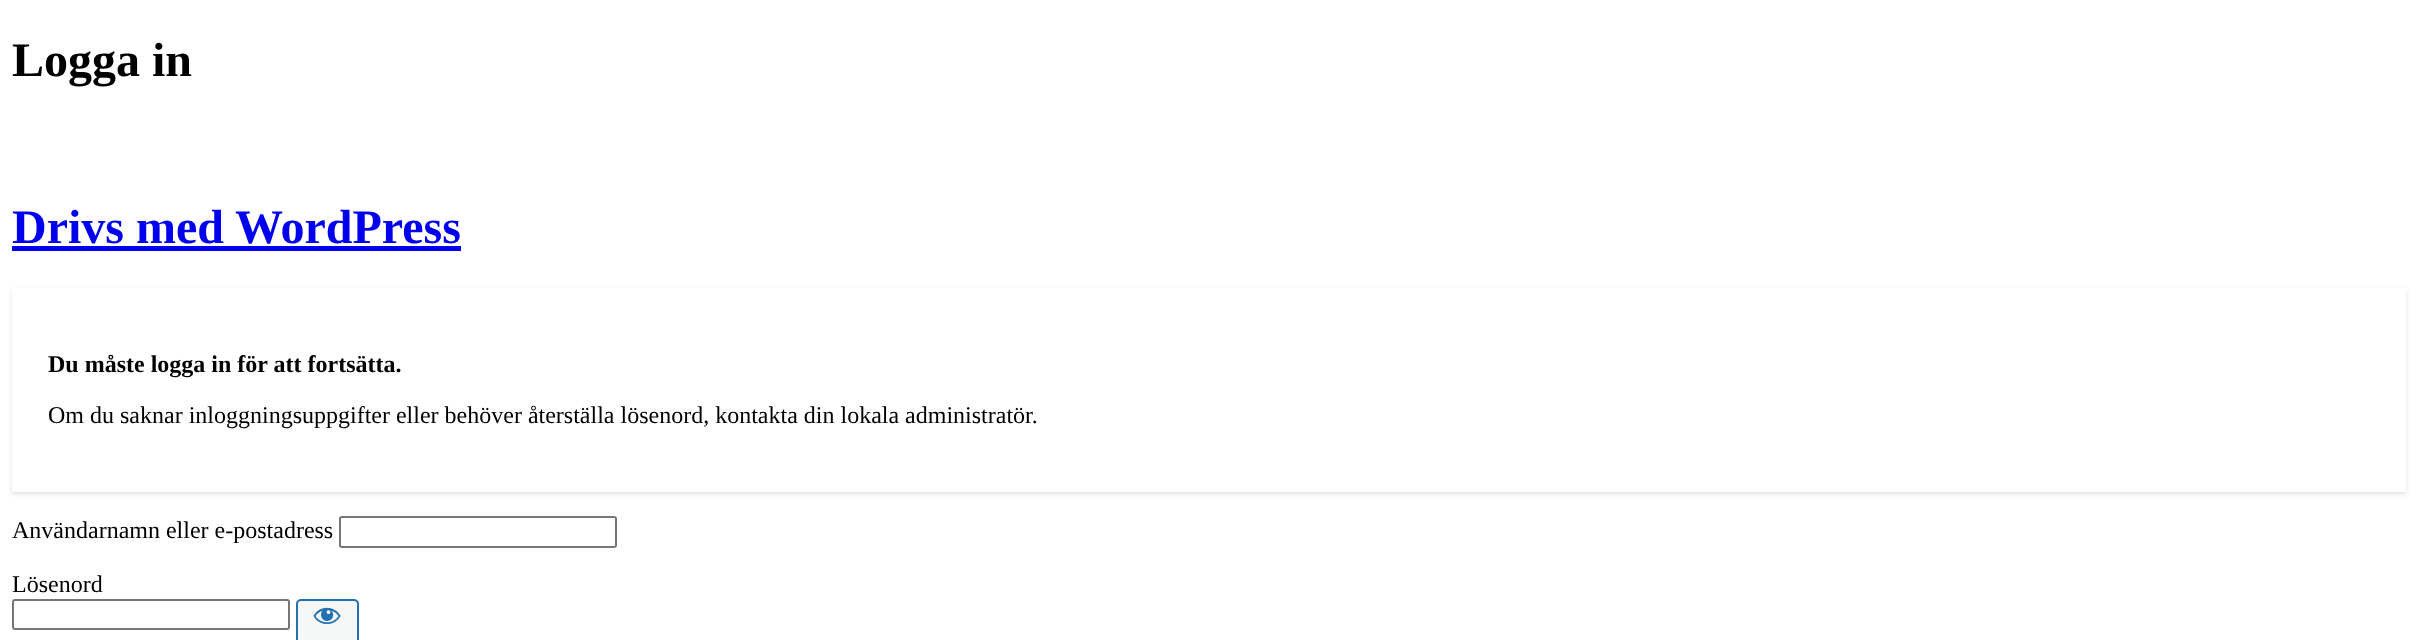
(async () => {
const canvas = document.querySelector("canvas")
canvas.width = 2418
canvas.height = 640
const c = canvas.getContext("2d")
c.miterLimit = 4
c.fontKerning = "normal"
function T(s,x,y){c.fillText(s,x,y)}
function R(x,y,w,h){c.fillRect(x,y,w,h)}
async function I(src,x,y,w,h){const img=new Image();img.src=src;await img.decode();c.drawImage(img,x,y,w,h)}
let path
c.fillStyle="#fff"
R(0,0,2418,640)
c.font="bold 48px Liberation Serif"
c.fillStyle="#000"
T("Logga in",12,76)
c.fillStyle="#00e"
T("Drivs med WordPress",12,243)
R(12,246,449,5)
c.save()
path = new Path2D("M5 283h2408v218h-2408zm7 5h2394v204h-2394z")
c.clip(path,"evenodd")
c.fillStyle="#00000021"
c.filter="blur(2px)"
c.beginPath()
c.rect(12,290,2394,204)
c.fill()
c.filter="none"
c.restore()
c.font="bold 24px Liberation Serif"
c.fillStyle="#000"
T("Du måste logga in för att fortsätta.",48,372)
c.font="24px Liberation Serif"
T("Om du saknar inloggningsuppgifter eller behöver återställa lösenord, kontakta din lokala administratör.",48,423)
T("Användarnamn eller e-postadress",12,538)
c.beginPath()
c.roundRect(340,517,276,30,2)
c.strokeStyle="#767676"
c.lineWidth=2
c.stroke()
T("Lösenord",12,592)
c.beginPath()
c.roundRect(13,600,276,29,2)
c.stroke()
c.fillStyle="#f6f7f7"
c.beginPath()
c.roundRect(297,600,61,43,4)
c.fill()
c.strokeStyle="#2271b1"
c.stroke()
await I("1.png",313,607,28,18)
})()
